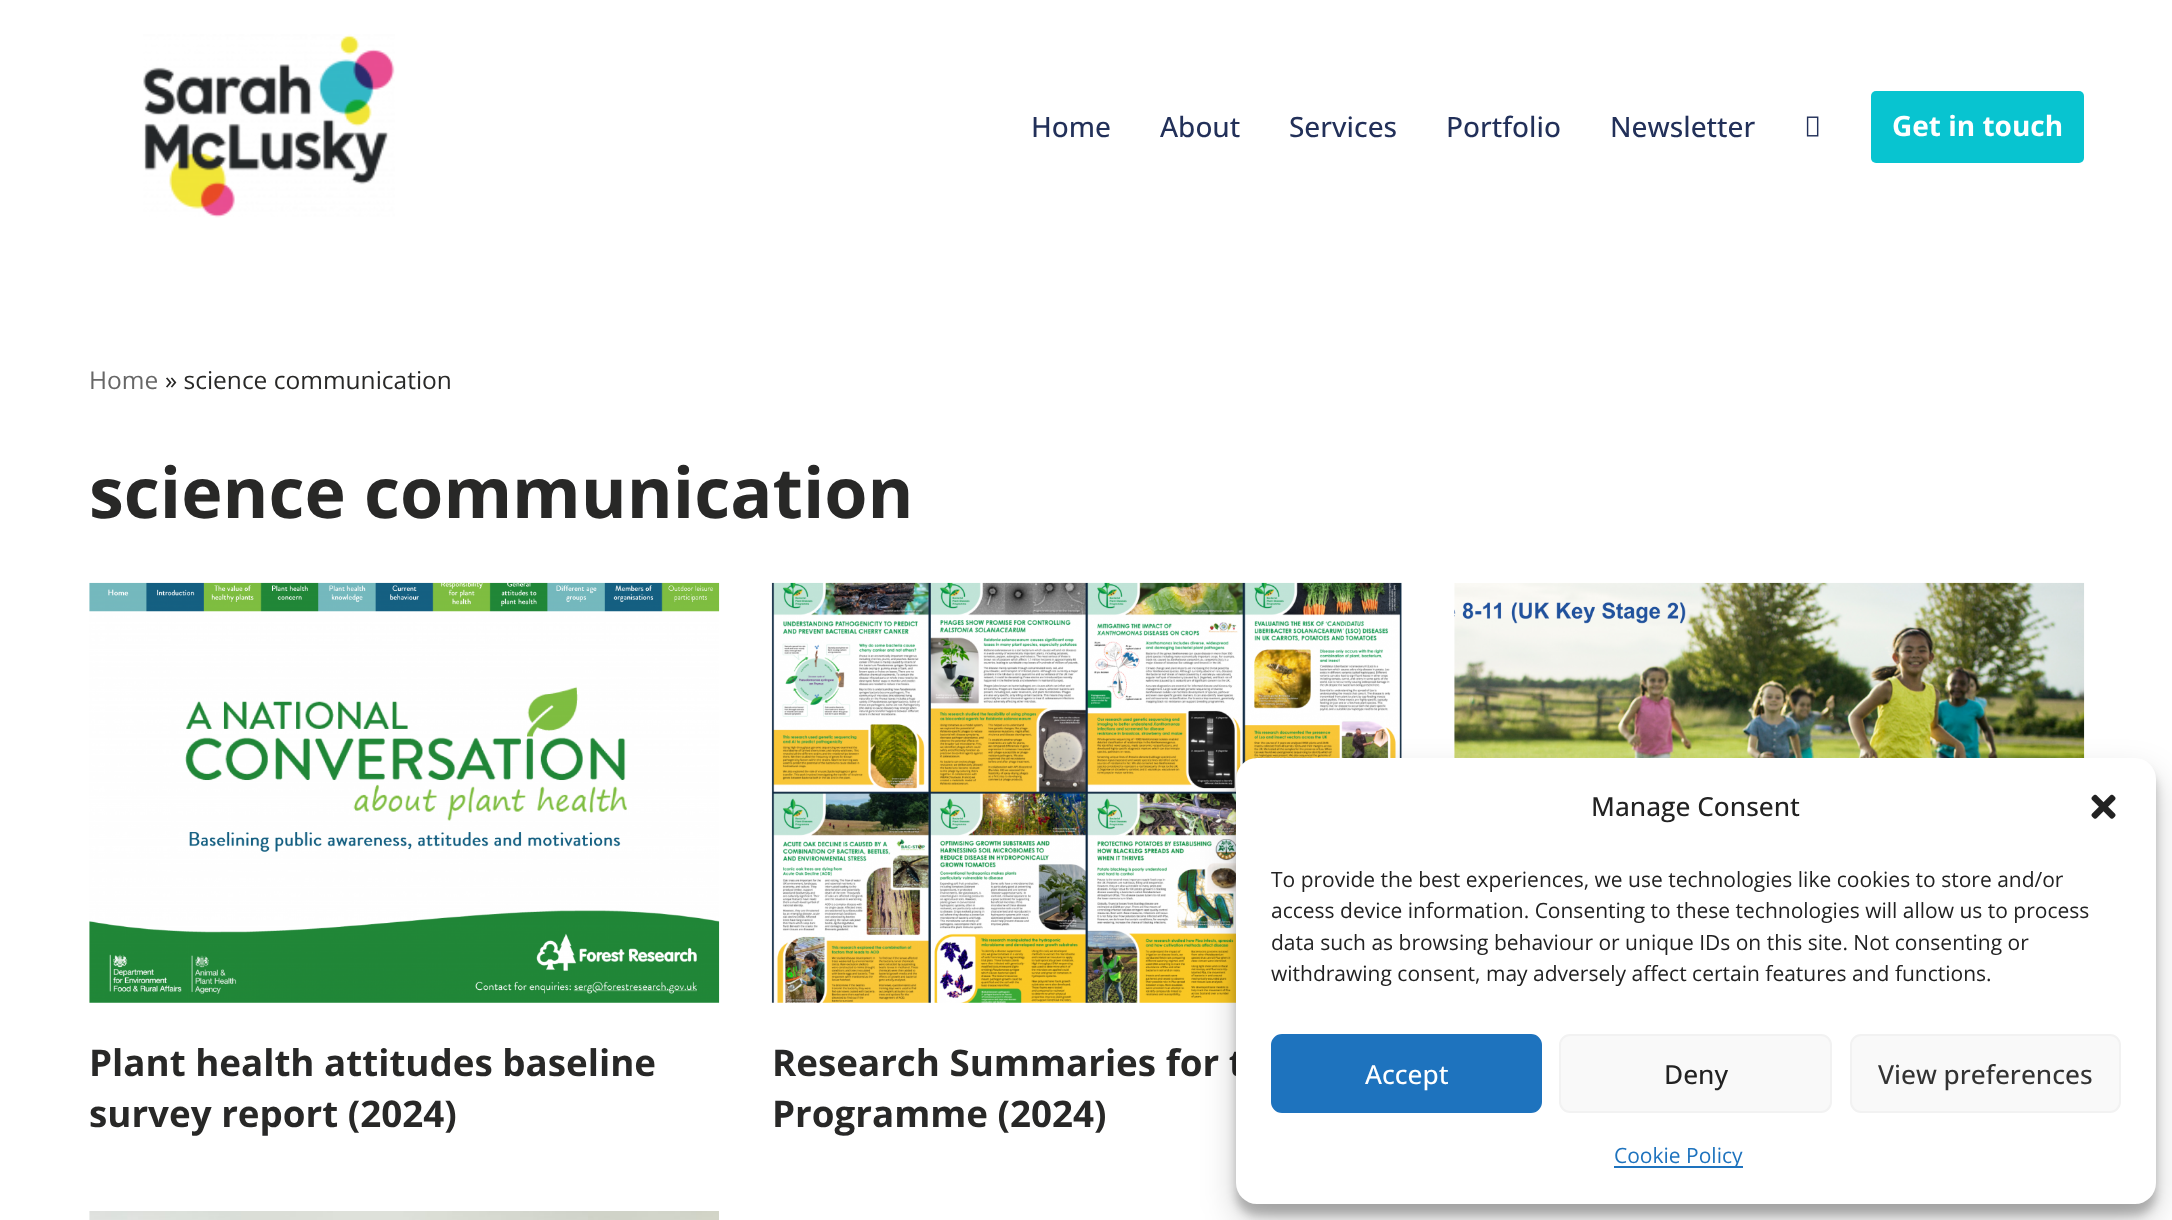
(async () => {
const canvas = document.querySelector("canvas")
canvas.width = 2172
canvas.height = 1220
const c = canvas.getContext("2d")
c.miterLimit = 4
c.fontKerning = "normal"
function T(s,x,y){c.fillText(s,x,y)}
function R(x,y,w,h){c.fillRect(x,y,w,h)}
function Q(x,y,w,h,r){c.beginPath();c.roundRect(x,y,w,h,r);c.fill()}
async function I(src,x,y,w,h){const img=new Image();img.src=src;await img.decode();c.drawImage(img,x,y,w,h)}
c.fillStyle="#fff"
R(0,0,2172,1220)
await I("1.png",143,34,252,184)
c.font="500 28px Open Sans"
c.fillStyle="#223059"
T("Home",1031,137)
T("About",1160,137)
T("Services",1289,137)
T("Portfolio",1446,137)
T("Newsletter",1610,137)
await I("2.png",1806,116,13,21)
c.fillStyle="#08c4d0"
Q(1871,91,213,72,5)
c.font="bold 28px Open Sans"
c.fillStyle="#fff"
T("Get in touch",1892,136)
c.font="24.5px Open Sans"
c.fillStyle="#676767"
T("Home",89,389)
c.fillStyle="#282827"
T("» science communication",165,389)
c.font="bold 70px Open Sans"
T("science communication",89,518)
await I("3.png",1454,582,631,176)
await I("4.png",89,582,631,421)
c.font="bold 36.75px Open Sans"
T("Plant health attitudes baseline",89,1076)
T("survey report (2024)",89,1127)
await I("5.png",771,582,631,421)
T("Research Summaries for t",772,1076)
T("Programme (2024)",772,1127)
await I("6.png",89,1211,630,9)
c.fillStyle="#0000003b"
c.filter="blur(5px)"
c.beginPath()
c.roundRect(1236,768,920,447,21)
c.fill()
c.filter="none"
c.fillStyle="#00000030"
c.filter="blur(17.5px)"
c.beginPath()
c.roundRect(1236,775,920,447,21)
c.fill()
c.filter="none"
c.fillStyle="#fff"
Q(1236,758,920,446,21)
c.font="500 26.25px Open Sans"
c.fillStyle="#222"
T("Manage Consent",1591,816)
await I("7.png",2091,794,25,25)
c.font="21px Open Sans"
T("To provide the best experiences, we use technologies like cookies to store and/or",1271,887)
T("access device information. Consenting to these technologies will allow us to process",1271,918)
T("data such as browsing behaviour or unique IDs on this site. Not consenting or",1271,950)
T("withdrawing consent, may adversely affect certain features and functions.",1271,981)
c.fillStyle="#1e73be"
c.beginPath()
c.roundRect(1272,1035,269,77,10)
c.fill()
c.strokeStyle="#1e73be"
c.lineWidth=2
c.stroke()
c.font="500 26.25px Open Sans"
c.fillStyle="#fff"
T("Accept",1365,1084)
c.fillStyle="#f9f9f9"
c.beginPath()
c.roundRect(1560,1035,271,77,10)
c.fill()
c.strokeStyle="#f2f2f2"
c.stroke()
c.fillStyle="#222"
T("Deny",1664,1084)
c.fillStyle="#f9f9f9"
c.beginPath()
c.roundRect(1851,1035,269,77,10)
c.fill()
c.stroke()
c.fillStyle="#333"
T("View preferences",1878,1084)
c.fillStyle="#1e73be"
R(1614,1166,129,2)
c.font="21px Open Sans"
T("Cookie Policy",1614,1163)
})()
